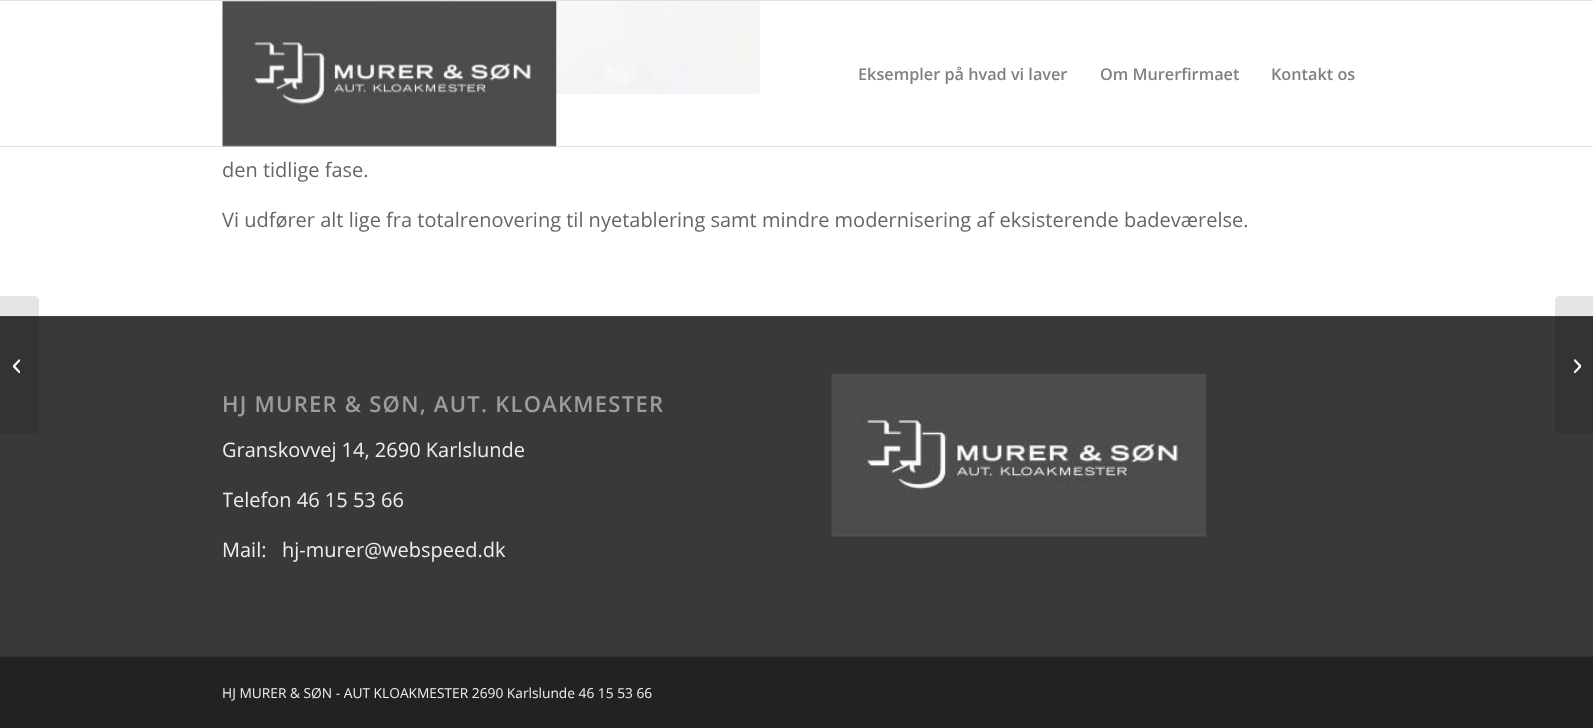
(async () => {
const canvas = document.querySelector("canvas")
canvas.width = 1593
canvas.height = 728
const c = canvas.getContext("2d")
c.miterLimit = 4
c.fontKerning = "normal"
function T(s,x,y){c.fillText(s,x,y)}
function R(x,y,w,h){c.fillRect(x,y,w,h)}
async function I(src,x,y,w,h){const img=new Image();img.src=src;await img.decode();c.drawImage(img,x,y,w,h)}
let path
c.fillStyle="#fff"
R(0,0,1593,728)
await I("3.png",222,1,538,93)
c.fillStyle="#fffffff2"
R(222,1,538,93)
c.fillStyle="#e1e1e1"
R(0,0,1593,1)
R(0,146,1593,1)
await I("1.png",222,1,335,146)
c.font="600 16.25px Open Sans"
c.fillStyle="#808080"
T("Eksempler på hvad vi laver",858,80)
T("Om Murerfirmaet",1100,80)
T("Kontakt os",1271,80)
c.fillStyle="#393939"
R(0,317,1593,339)
c.fillStyle="#444"
R(0,316,1593,1)
c.fillStyle="#0000001a"
c.beginPath()
c.roundRect(0,296,39,138,[0,5,5,0])
c.fill()
await I("2.png",13,359,7,15)
c.font="20px Open Sans"
c.fillStyle="#666"
T("den tidlige fase.",222,177)
T("Vi udfører alt lige fra totalrenovering til nyetablering samt mindre modernisering af eksisterende badeværelse.",222,227)
c.letterSpacing="1.25px"
c.font="600 22px Open Sans"
c.fillStyle="#9c9c9c"
T("HJ MURER & SØN, AUT. KLOAKMESTER",222,412)
c.letterSpacing="0px"
c.font="20px Open Sans"
c.fillStyle="#eee"
T("Granskovvej 14, 2690 Karlslunde",222,457)
c.save()
c.beginPath()
c.rect(223,374,540,209)
c.clip()
T("Telefon 46 15 53 66",222,507)
c.restore()
T("Mail:   hj-murer@webspeed.dk",222,557)
await I("4.png",831,374,376,163)
c.fillStyle="#222"
R(0,657,1593,71)
c.fillStyle="#333"
R(0,656,1593,1)
c.font="13.75px Open Sans"
c.fillStyle="#eee"
T("HJ MURER & SØN - AUT KLOAKMESTER 2690 Karlslunde 46 15 53 66",222,698)
c.fillStyle="#0000001a"
path = new Path2D("M1560 296h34v138h-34c-3 0-5-2-5-5v-128c0-3 2-5 5-5z")
c.fill(path)
await I("5.png",1574,359,7,15)
})()
